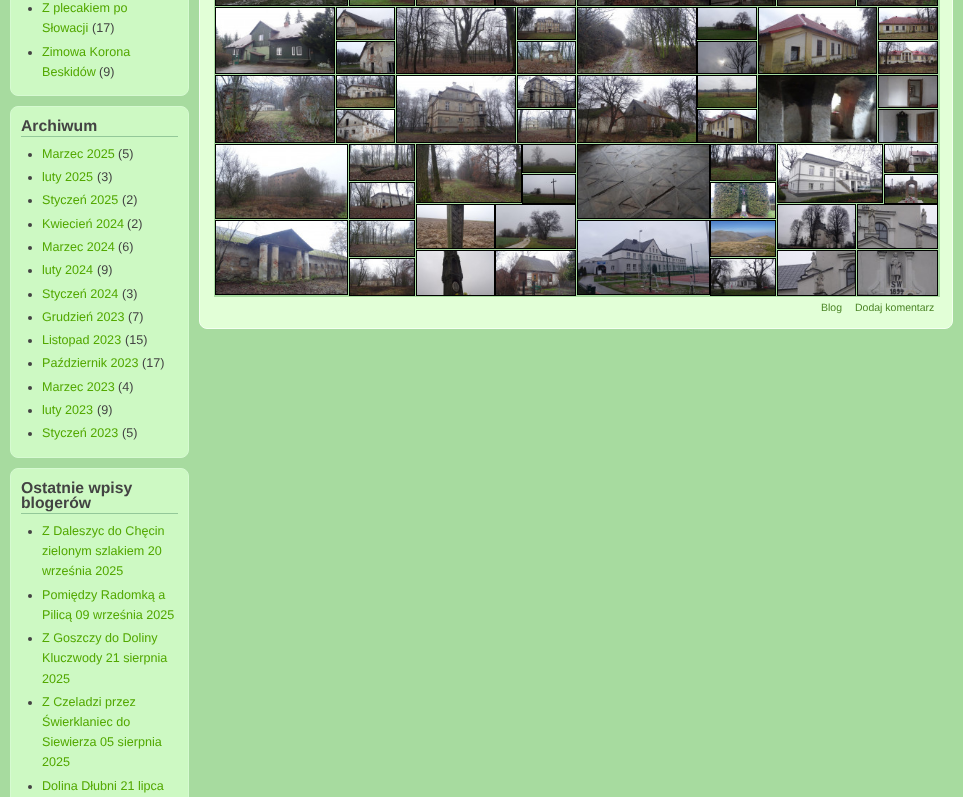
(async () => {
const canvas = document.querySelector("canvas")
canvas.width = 963
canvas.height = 797
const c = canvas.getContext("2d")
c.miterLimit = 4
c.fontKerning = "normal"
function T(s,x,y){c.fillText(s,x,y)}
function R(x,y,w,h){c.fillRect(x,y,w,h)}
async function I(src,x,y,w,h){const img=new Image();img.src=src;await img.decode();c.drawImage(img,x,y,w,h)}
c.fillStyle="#a7db9f"
R(0,0,963,797)
c.fillStyle="#cdf9c3"
c.beginPath()
c.roundRect(10.5,-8.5,178,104,7.5)
c.fill()
c.strokeStyle="#d6fad1"
c.stroke()
c.fillStyle="#434343"
c.beginPath()
c.arc(30,9,2,0,7)
c.fill()
c.font="12.6px Liberation Sans"
c.fillStyle="#52a800"
T("Z plecakiem po",42,12)
T("Słowacji",42,32)
c.fillStyle="#434343"
T("(17)",92,32)
c.beginPath()
c.arc(30,53,2,0,7)
c.fill()
c.fillStyle="#52a800"
T("Zimowa Korona",42,56)
T("Beskidów",42,76)
c.fillStyle="#434343"
T("(9)",99,76)
c.fillStyle="#cdf9c3"
c.beginPath()
c.roundRect(10.5,106.5,178,351,7.5)
c.fill()
c.stroke()
c.fillStyle="#93c899"
R(21,136,157,1)
c.font="bold 15.75px Liberation Sans"
c.fillStyle="#434343"
T("Archiwum",21,131)
c.beginPath()
c.arc(30,155,2,0,7)
c.fill()
c.font="12.6px Liberation Sans"
c.fillStyle="#52a800"
T("Marzec 2025",42,158)
c.fillStyle="#434343"
T("(5)",118,158)
c.beginPath()
c.arc(30,178,2,0,7)
c.fill()
c.fillStyle="#52a800"
T("luty 2025",42,181)
c.fillStyle="#434343"
T("(3)",97,181)
c.beginPath()
c.arc(30,201,2,0,7)
c.fill()
c.fillStyle="#52a800"
T("Styczeń 2025",42,204)
c.fillStyle="#434343"
T("(2)",122,204)
c.beginPath()
c.arc(30,225,2,0,7)
c.fill()
c.fillStyle="#52a800"
T("Kwiecień 2024",42,228)
c.fillStyle="#434343"
T("(2)",127,228)
c.beginPath()
c.arc(30,248,2,0,7)
c.fill()
c.fillStyle="#52a800"
T("Marzec 2024",42,251)
c.fillStyle="#434343"
T("(6)",118,251)
c.beginPath()
c.arc(30,271,2,0,7)
c.fill()
c.fillStyle="#52a800"
T("luty 2024",42,274)
c.fillStyle="#434343"
T("(9)",97,274)
c.beginPath()
c.arc(30,295,2,0,7)
c.fill()
c.fillStyle="#52a800"
T("Styczeń 2024",42,298)
c.fillStyle="#434343"
T("(3)",122,298)
c.beginPath()
c.arc(30,318,2,0,7)
c.fill()
c.fillStyle="#52a800"
T("Grudzień 2023",42,321)
c.fillStyle="#434343"
T("(7)",128,321)
c.beginPath()
c.arc(30,341,2,0,7)
c.fill()
c.fillStyle="#52a800"
T("Listopad 2023",42,344)
c.fillStyle="#434343"
T("(15)",125,344)
c.beginPath()
c.arc(30,364,2,0,7)
c.fill()
c.fillStyle="#52a800"
T("Październik 2023",42,367)
c.fillStyle="#434343"
T("(17)",142,367)
c.beginPath()
c.arc(30,388,2,0,7)
c.fill()
c.fillStyle="#52a800"
T("Marzec 2023",42,391)
c.fillStyle="#434343"
T("(4)",118,391)
c.beginPath()
c.arc(30,411,2,0,7)
c.fill()
c.fillStyle="#52a800"
T("luty 2023",42,414)
c.fillStyle="#434343"
T("(9)",97,414)
c.beginPath()
c.arc(30,434,2,0,7)
c.fill()
c.fillStyle="#52a800"
T("Styczeń 2023",42,437)
c.fillStyle="#434343"
T("(5)",122,437)
c.fillStyle="#cdf9c3"
c.beginPath()
c.roundRect(10.5,468.5,178,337,7.5)
c.fill()
c.stroke()
c.fillStyle="#93c899"
R(21,513,157,1)
c.font="bold 15.75px Liberation Sans"
c.fillStyle="#434343"
T("Ostatnie wpisy",21,493)
T("blogerów",21,508)
c.beginPath()
c.arc(30,532,2,0,7)
c.fill()
c.font="12.6px Liberation Sans"
c.fillStyle="#52a800"
T("Z Daleszyc do Chęcin",42,535)
T("zielonym szlakiem 20",42,555)
T("września 2025",42,575)
c.fillStyle="#434343"
c.beginPath()
c.arc(30,596,2,0,7)
c.fill()
c.fillStyle="#52a800"
T("Pomiędzy Radomką a",42,599)
T("Pilicą 09 września 2025",42,619)
c.fillStyle="#434343"
c.beginPath()
c.arc(30,639,2,0,7)
c.fill()
c.fillStyle="#52a800"
T("Z Goszczy do Doliny",42,642)
T("Kluczwody 21 sierpnia",42,662)
T("2025",42,683)
c.fillStyle="#434343"
c.beginPath()
c.arc(30,703,2,0,7)
c.fill()
c.fillStyle="#52a800"
T("Z Czeladzi przez",42,706)
T("Świerklaniec do",42,726)
T("Siewierza 05 sierpnia",42,746)
T("2025",42,766)
c.fillStyle="#434343"
c.beginPath()
c.arc(30,787,2,0,7)
c.fill()
c.fillStyle="#52a800"
T("Dolina Dłubni 21 lipca",42,790)
c.fillStyle="#e2ffd7"
c.beginPath()
c.roundRect(199.5,-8.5,753,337,7.5)
c.fill()
c.strokeStyle="#f3fff0"
c.stroke()
c.fillStyle="#a7db9f"
R(214,0,726,297)
c.strokeStyle="#000"
c.strokeRect(215.5,-.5,132,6)
await I("1.png",216,0,131,5)
c.strokeRect(349.5,-.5,65,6)
await I("2.png",350,0,64,5)
c.strokeRect(416.5,-.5,78,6)
await I("3.png",417,0,77,5)
c.strokeRect(495.5,-.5,80,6)
await I("4.png",496,0,79,5)
c.strokeRect(577.5,-.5,132,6)
await I("5.png",578,0,131,5)
c.strokeRect(710.5,-.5,65,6)
await I("6.png",711,0,64,5)
c.strokeRect(777.5,-.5,78,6)
await I("7.png",778,0,77,5)
c.strokeRect(857.5,-.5,80,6)
await I("8.png",858,0,79,5)
c.strokeRect(215.5,7.5,119,66)
await I("9.png",216,8,118,65)
c.strokeRect(336.5,7.5,58,32)
await I("10.png",337,8,57,31)
c.strokeRect(336.5,41.5,58,32)
await I("11.png",337,42,57,31)
c.strokeRect(215.5,75.5,119,67)
await I("12.png",216,76,118,66)
c.strokeRect(336.5,75.5,58,32)
await I("13.png",337,76,57,31)
c.strokeRect(336.5,109.5,58,33)
await I("14.png",337,110,57,32)
c.strokeRect(396.5,7.5,119,66)
await I("15.png",397,8,118,65)
c.strokeRect(517.5,7.5,58,32)
await I("16.png",518,8,57,31)
c.strokeRect(517.5,41.5,58,32)
await I("17.png",518,42,57,31)
c.strokeRect(396.5,75.5,119,67)
await I("18.png",397,76,118,66)
c.strokeRect(517.5,75.5,58,32)
await I("19.png",518,76,57,31)
c.strokeRect(517.5,109.5,58,33)
await I("20.png",518,110,57,32)
c.strokeRect(215.5,144.5,132,74)
await I("21.png",216,145,131,73)
c.strokeRect(349.5,144.5,65,36)
await I("22.png",350,145,64,35)
c.strokeRect(349.5,182.5,65,36)
await I("23.png",350,183,64,35)
c.strokeRect(215.5,220.5,132,74)
await I("24.png",216,221,131,73)
c.strokeRect(349.5,220.5,65,36)
await I("25.png",350,221,64,35)
c.strokeRect(349.5,258.5,65,37)
await I("26.png",350,259,64,36)
c.strokeRect(416.5,144.5,105,58)
await I("27.png",417,145,104,57)
c.strokeRect(522.5,144.5,53,28)
await I("28.png",523,145,52,27)
c.strokeRect(522.5,174.5,53,29)
await I("29.png",523,175,52,28)
c.strokeRect(416.5,204.5,78,44)
await I("30.png",417,205,77,43)
c.strokeRect(416.5,250.5,78,45)
await I("31.png",417,251,77,44)
c.strokeRect(495.5,204.5,80,44)
await I("32.png",496,205,79,43)
c.strokeRect(495.5,250.5,80,45)
await I("33.png",496,251,79,44)
c.strokeRect(577.5,7.5,119,66)
await I("34.png",578,8,118,65)
c.strokeRect(697.5,7.5,59,32)
await I("35.png",698,8,58,31)
c.strokeRect(697.5,41.5,59,32)
await I("36.png",698,42,58,31)
c.strokeRect(577.5,75.5,119,67)
await I("37.png",578,76,118,66)
c.strokeRect(697.5,75.5,59,32)
await I("38.png",698,76,58,31)
c.strokeRect(697.5,109.5,59,33)
await I("39.png",698,110,58,32)
c.strokeRect(758.5,7.5,118,66)
await I("40.png",759,8,117,65)
c.strokeRect(878.5,7.5,59,32)
await I("41.png",879,8,58,31)
c.strokeRect(878.5,41.5,59,32)
await I("42.png",879,42,58,31)
c.strokeRect(758.5,75.5,118,67)
await I("43.png",759,76,117,66)
c.strokeRect(878.5,75.5,59,32)
await I("44.png",879,76,58,31)
c.strokeRect(878.5,109.5,59,33)
await I("45.png",879,110,58,32)
c.strokeRect(577.5,144.5,132,74)
await I("46.png",578,145,131,73)
c.strokeRect(710.5,144.5,65,36)
await I("47.png",711,145,64,35)
c.strokeRect(710.5,182.5,65,36)
await I("48.png",711,183,64,35)
c.strokeRect(577.5,220.5,132,74)
await I("49.png",578,221,131,73)
c.strokeRect(710.5,220.5,65,36)
await I("50.png",711,221,64,35)
c.strokeRect(710.5,258.5,65,37)
await I("51.png",711,259,64,36)
c.strokeRect(777.5,144.5,105,58)
await I("52.png",778,145,104,57)
c.strokeRect(884.5,144.5,53,28)
await I("53.png",885,145,52,27)
c.strokeRect(884.5,174.5,53,29)
await I("54.png",885,175,52,28)
c.strokeRect(777.5,204.5,78,44)
await I("55.png",778,205,77,43)
c.strokeRect(777.5,250.5,78,45)
await I("56.png",778,251,77,44)
c.strokeRect(857.5,204.5,80,44)
await I("57.png",858,205,79,43)
c.strokeRect(857.5,250.5,80,45)
await I("58.png",858,251,79,44)
c.font="10.5px Liberation Sans"
c.fillStyle="#4d8628"
T("Blog",821,311)
T("Dodaj komentarz",855,311)
})()
